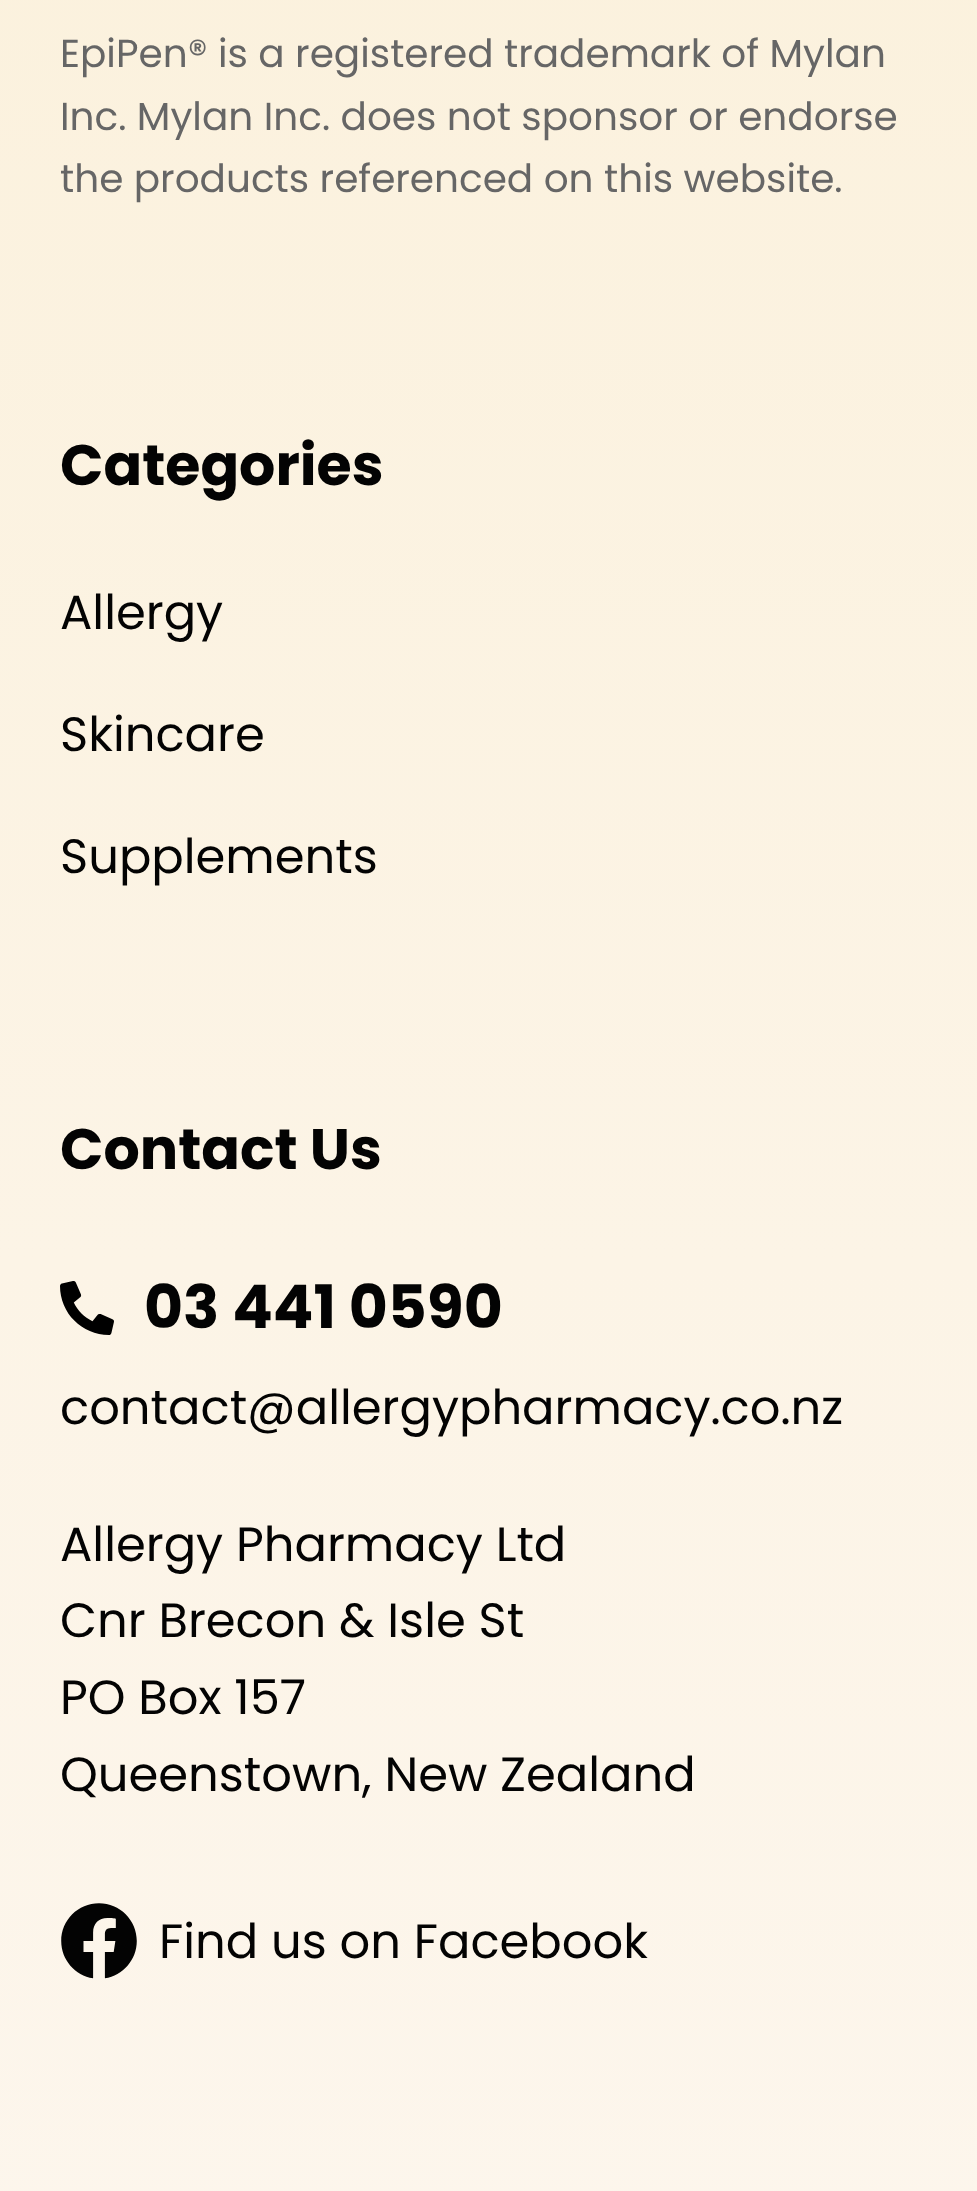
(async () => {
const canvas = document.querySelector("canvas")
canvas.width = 977
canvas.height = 2191
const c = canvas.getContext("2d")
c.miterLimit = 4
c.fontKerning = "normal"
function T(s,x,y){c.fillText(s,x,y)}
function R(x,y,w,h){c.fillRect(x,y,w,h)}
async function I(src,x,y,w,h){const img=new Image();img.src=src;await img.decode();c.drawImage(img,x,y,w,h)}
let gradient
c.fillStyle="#fff"
R(0,0,977,2191)
gradient = c.createLinearGradient(489,-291,489,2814)
gradient.addColorStop(0,"#fbf1dc")
gradient.addColorStop(1,"#fdf7f0")
c.fillStyle = gradient
R(0,0,977,2191)
c.font="39px Poppins"
c.fillStyle="#666"
T("EpiPen® is a registered trademark of Mylan",60,67)
T("Inc. Mylan Inc. does not sponsor or endorse",60,130)
T("the products referenced on this website.",60,192)
c.font="bold 57px Poppins"
c.fillStyle="#030303"
T("Categories",60,485)
c.font="48px Poppins"
T("Allergy",60,629)
T("Skincare",60,751)
T("Supplements",60,873)
c.font="bold 57px Poppins"
T("Contact Us",60,1169)
await I("1.png",60,1281,54,54)
c.font="bold 60px Poppins"
T("03 441 0590",144,1328)
c.font="48px Poppins"
T("contact@allergypharmacy.co.nz",60,1424)
T("Allergy Pharmacy Ltd",60,1561)
T("Cnr Brecon & Isle St",60,1637)
T("PO Box 157",60,1714)
T("Queenstown, New Zealand",60,1791)
await I("2.png",61,1903,76,76)
T("Find us on Facebook",159,1958)
})()
